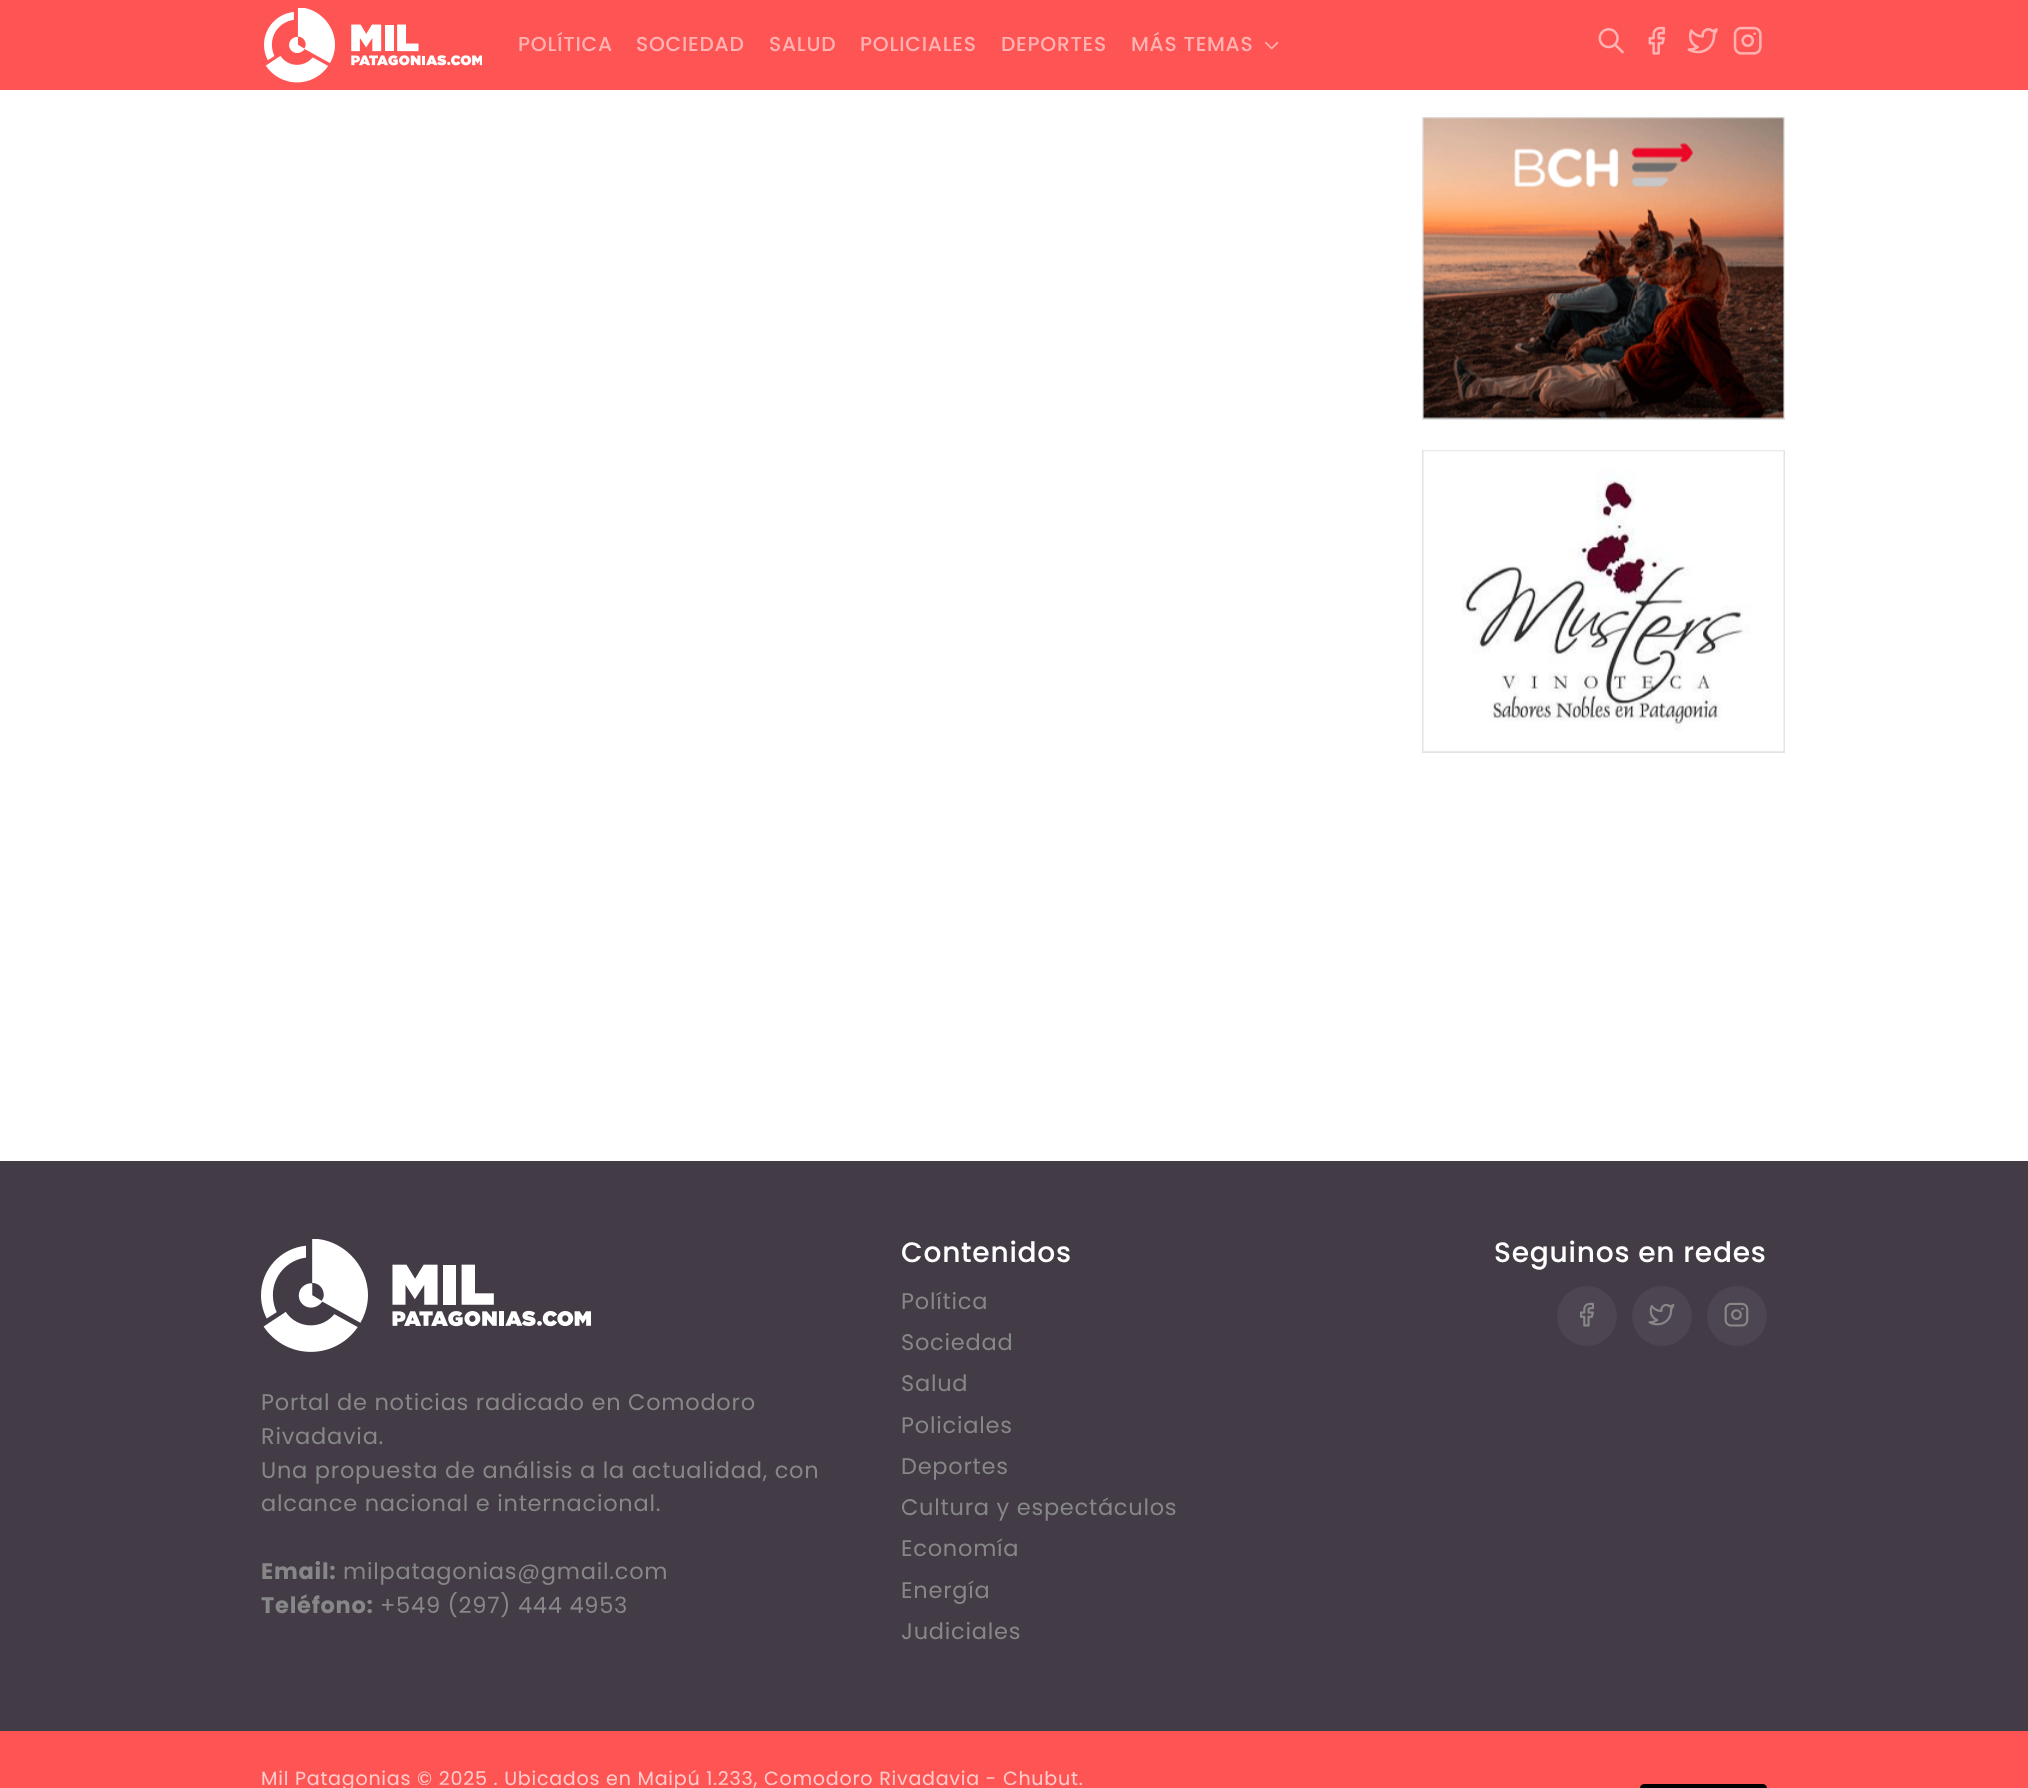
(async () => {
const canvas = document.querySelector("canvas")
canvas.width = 2028
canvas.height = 1788
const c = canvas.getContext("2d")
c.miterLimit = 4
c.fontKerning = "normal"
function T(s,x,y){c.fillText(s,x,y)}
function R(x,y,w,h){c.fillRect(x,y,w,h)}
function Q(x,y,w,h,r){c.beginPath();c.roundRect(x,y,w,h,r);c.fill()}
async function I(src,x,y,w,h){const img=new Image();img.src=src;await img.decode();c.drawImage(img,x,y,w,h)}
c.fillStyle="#fff"
R(0,0,2028,1788)
c.fillStyle="#ff5454"
R(0,0,2028,90)
await I("1.png",264,8,218,75)
c.letterSpacing="0.75px"
c.font="500 20.25px Poppins"
c.fillStyle="#ffb2b2"
T("POLÍTICA",518,51)
T("SOCIEDAD",636,51)
T("SALUD",769,51)
T("POLICIALES",860,51)
T("DEPORTES",1001,51)
T("MÁS TEMAS",1131,51)
await I("2.png",1265,41,14,9)
await I("3.png",1598,28,26,26)
await I("4.png",1648,26,18,29)
await I("5.png",1687,28,31,26)
await I("6.png",1733,26,29,29)
c.strokeStyle="#e3e3e3"
c.lineWidth=2
c.strokeRect(1423,118,361,301)
await I("7.png",1423,117,361,302)
c.strokeRect(1423,451,361,301)
await I("8.png",1423,450,361,302)
c.fillStyle="#433b46"
R(0,1161,2028,570)
c.font="500 28.1px Poppins"
c.fillStyle="#fff"
T("Contenidos",901,1262)
c.font="22.5px Poppins"
c.fillStyle="#878787"
T("Política",901,1309)
T("Sociedad",901,1350)
T("Salud",901,1391)
T("Policiales",901,1433)
T("Deportes",901,1474)
T("Cultura y espectáculos",901,1515)
T("Economía",901,1556)
T("Energía",901,1598)
T("Judiciales",901,1639)
c.font="500 28.1px Poppins"
c.fillStyle="#fff"
T("Seguinos en redes",1494,1262)
c.fillStyle="#4e4552"
c.beginPath()
c.arc(1587,1316,30,0,7)
c.fill()
await I("9.png",1580,1302,14,25)
c.beginPath()
c.arc(1662,1316,30,0,7)
c.fill()
await I("10.png",1648,1303,27,23)
c.beginPath()
c.arc(1737,1316,30,0,7)
c.fill()
await I("11.png",1724,1302,25,25)
await I("12.png",261,1239,330,113)
c.font="22.5px Poppins"
c.fillStyle="#878787"
T("Portal de noticias radicado en Comodoro",261,1410)
T("Rivadavia.",261,1444)
T("Una propuesta de análisis a la actualidad, con",261,1478)
T("alcance nacional e internacional.",261,1511)
c.font="bold 22.5px Poppins"
T("Email:",261,1579)
c.font="22.5px Poppins"
T("milpatagonias@gmail.com",343,1579)
c.font="bold 22.5px Poppins"
T("Teléfono:",261,1613)
c.font="22.5px Poppins"
T("+549 (297) 444 4953",380,1613)
c.fillStyle="#ff5454"
R(0,1731,2028,57)
c.font="19.1px Poppins"
c.fillStyle="#fcc"
T("Mil Patagonias © 2025 . Ubicados en Maipú 1.233, Comodoro Rivadavia - Chubut.",261,1785)
c.fillStyle="#000"
Q(1640,1784,127,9,5)
})()
